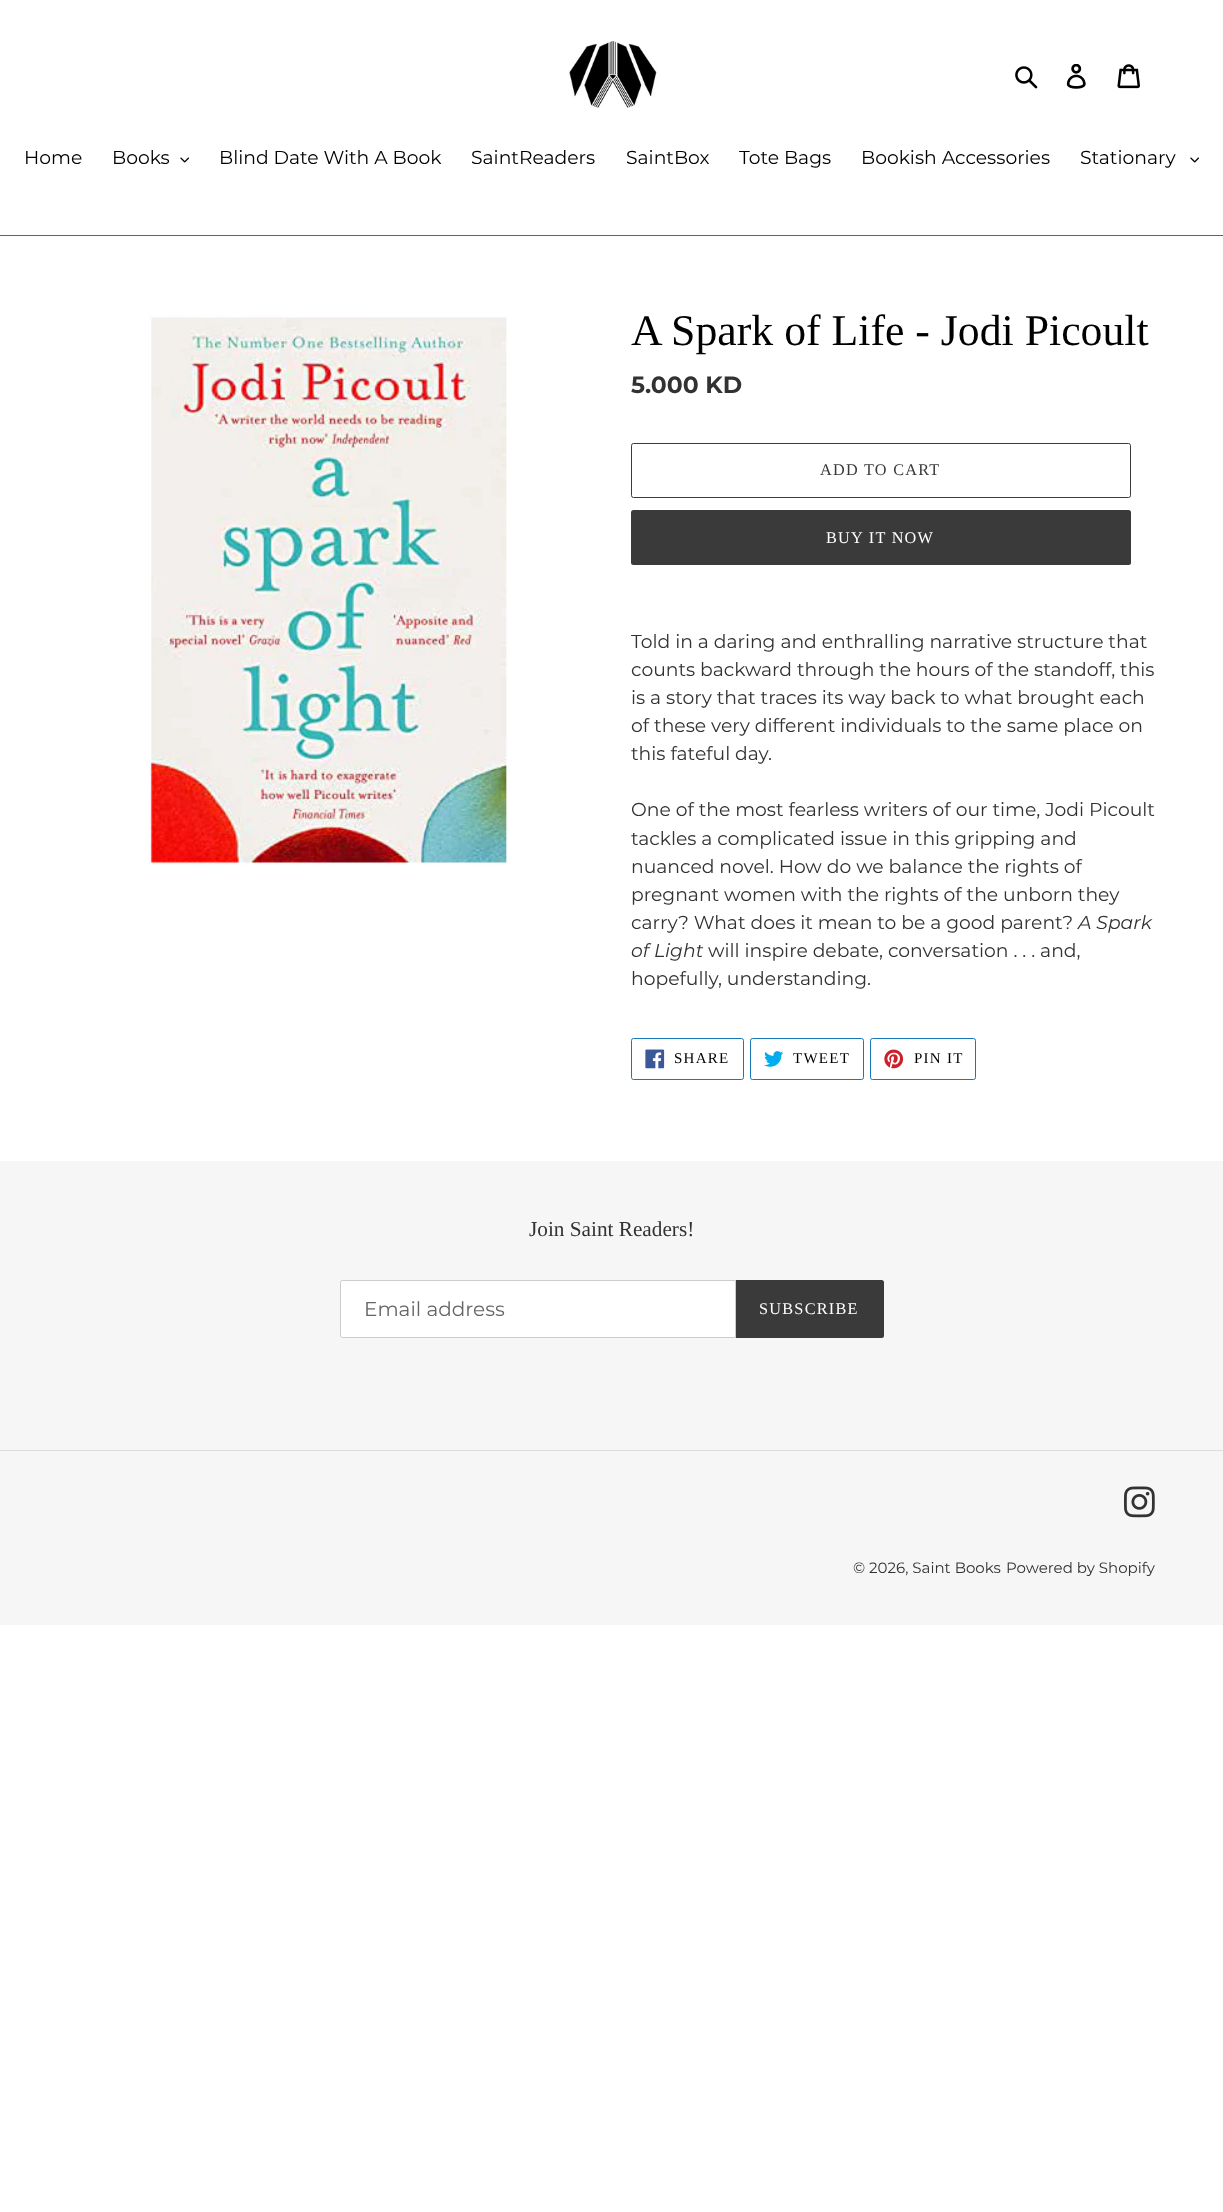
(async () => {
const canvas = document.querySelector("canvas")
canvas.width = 1223
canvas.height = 2212
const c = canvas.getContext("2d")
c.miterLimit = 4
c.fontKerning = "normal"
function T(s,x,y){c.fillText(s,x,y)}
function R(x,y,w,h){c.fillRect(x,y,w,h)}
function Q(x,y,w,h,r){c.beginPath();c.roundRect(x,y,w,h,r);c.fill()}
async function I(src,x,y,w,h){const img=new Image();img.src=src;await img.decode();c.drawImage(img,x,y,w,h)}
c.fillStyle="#fff"
R(0,0,1223,2212)
await I("1.png",568,41,89,67)
await I("2.png",1015,66,23,23)
await I("3.png",1066,64,20,25)
await I("4.png",1117,64,23,25)
c.fillStyle="#1878b9"
R(0,235,1223,1)
c.font="18.75px Montserrat"
c.fillStyle="#000"
T("Home",24,164)
T("Books",112,164)
await I("5.png",180,157,9,6)
T("Blind Date With A Book",219,164)
T("SaintReaders",471,164)
T("SaintBox",626,164)
T("Tote Bags",739,164)
T("Bookish Accessories",861,164)
T("Stationary",1080,164)
await I("5.png",1190,157,9,6)
await I("6.png",148,315,360,551)
c.font="43.75px Liberation Serif"
T("A Spark of Life - Jodi Picoult",631,345)
c.font="bold 23.5px Montserrat"
c.fillStyle="#333232"
T("5.000 KD",631,393)
c.beginPath()
c.roundRect(631.5,443.5,499,54,2)
c.strokeStyle="#3a3a3a"
c.stroke()
c.letterSpacing="1.25px"
c.font="16.25px Liberation Serif"
c.fillStyle="#3a3a3a"
T("ADD TO CART",820,475)
Q(631,510,500,55,2.5)
c.fillStyle="#fff"
T("BUY IT NOW",826,543)
c.letterSpacing="0px"
c.font="18.75px Montserrat"
c.fillStyle="#333232"
T("Told in a daring and enthralling narrative structure that",631,648)
T("counts backward through the hours of the standoff, this",631,676)
T("is a story that traces its way back to what brought each",631,704)
T("of these very different individuals to the same place on",631,732)
T("this fateful day.",631,760)
T("One of the most fearless writers of our time, Jodi Picoult",631,816)
T("tackles a complicated issue in this gripping and",631,845)
T("nuanced novel. How do we balance the rights of",631,873)
T("pregnant women with the rights of the unborn they",631,901)
T("carry? What does it mean to be a good parent?",631,929)
c.font="italic 18.75px Montserrat"
T("A Spark",1078,929)
T("of Light",631,957)
c.font="18.75px Montserrat"
T("will inspire debate, conversation . . . and,",708,957)
T("hopefully, understanding.",631,985)
c.beginPath()
c.roundRect(631.5,1038.5,112,41,2)
c.strokeStyle="#1878b9"
c.stroke()
await I("7.png",645,1049,20,20)
c.letterSpacing="1.25px"
c.font="15px Liberation Serif"
c.fillStyle="#000"
T("SHARE",674,1063)
c.beginPath()
c.roundRect(750.5,1038.5,113,41,2)
c.stroke()
await I("8.png",764,1051,20,16)
T("TWEET",793,1063)
c.beginPath()
c.roundRect(870.5,1038.5,105,41,2)
c.stroke()
await I("9.png",884,1049,20,20)
T("PIN IT",914,1063)
c.fillStyle="#f6f6f6"
R(0,1161,1223,464)
c.letterSpacing="0px"
c.font="21.25px Liberation Serif"
c.fillStyle="#333232"
T("Join Saint Readers!",529,1236)
c.fillStyle="#fff"
c.beginPath()
c.roundRect(340.5,1280.5,395,57,[2,0,0,2])
c.fill()
c.strokeStyle="#ccc"
c.stroke()
c.font="20px Montserrat"
c.fillStyle="#666"
T("Email address",364,1316)
c.fillStyle="#3a3a3a"
c.beginPath()
c.roundRect(736,1280,148,58,[0,2.5,2.5,0])
c.fill()
c.letterSpacing="1.25px"
c.font="16.25px Liberation Serif"
c.fillStyle="#fff"
T("SUBSCRIBE",759,1314)
c.fillStyle="#ddd"
R(0,1450,1223,1)
await I("10.png",1124,1486,31,32)
c.letterSpacing="0px"
c.font="15px Montserrat"
c.fillStyle="#333232"
T("© 2026, Saint Books",853,1573)
T("Powered by Shopify",1006,1573)
})()
